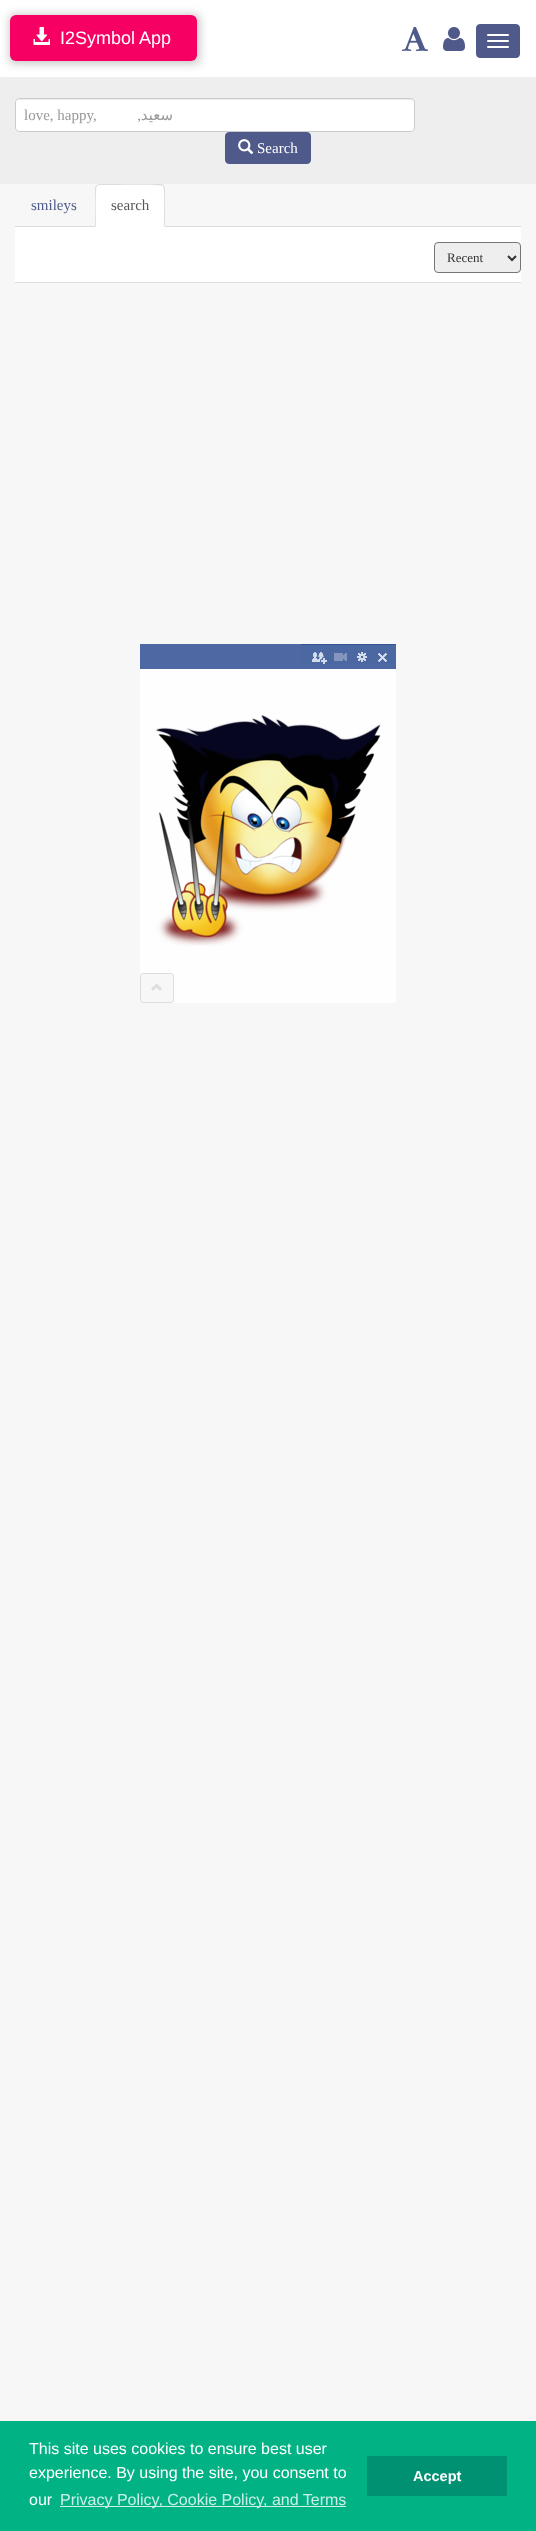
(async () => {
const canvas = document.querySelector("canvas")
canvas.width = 536
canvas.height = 2531
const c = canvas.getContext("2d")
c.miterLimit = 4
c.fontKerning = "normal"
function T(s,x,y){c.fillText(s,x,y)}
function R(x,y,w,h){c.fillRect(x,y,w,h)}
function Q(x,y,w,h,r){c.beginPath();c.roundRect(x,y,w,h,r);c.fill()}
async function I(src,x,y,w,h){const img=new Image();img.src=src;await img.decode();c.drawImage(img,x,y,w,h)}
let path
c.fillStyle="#fff"
R(0,0,536,2531)
c.fillStyle="#eee"
R(0,77,536,107)
c.fillStyle="#00000040"
c.filter="blur(5px)"
c.beginPath()
c.rect(10,15,189,48)
c.fill()
c.filter="none"
c.fillStyle="#f70063"
Q(10,15,187,46,6)
await I("1.png",33,27,17,18)
c.font="18px Liberation Sans"
c.fillStyle="#fff"
T("I2Symbol App",60,44)
await I("2.png",402,27,26,24)
await I("3.png",443,27,22,24)
c.fillStyle="#4f5a8a"
c.beginPath()
c.roundRect(476.5,24.5,43,33,3.5)
c.fill()
c.strokeStyle="#4f5a8a"
c.stroke()
c.fillStyle="#fff"
Q(487,34,22,2,1)
Q(487,40,22,2,1)
Q(487,46,22,2,1)
c.fillStyle="#f7f7f7"
R(0,184,536,2237)
c.fillStyle="#fff"
Q(15,98,400,34,4)
c.fillStyle="#ececec"
path = new Path2D("M19 100h392c2 0 3 1 3 3c0-2-1-4-3-4h-392l-2 1l-1 3c0-2 1-3 3-3z")
c.fill(path)
c.beginPath()
c.roundRect(15.5,98.5,399,33,3.5)
c.strokeStyle="#ccc"
c.stroke()
c.font="15px Liberation Serif"
c.fillStyle="#999"
T("love, happy,",24,120)
c.direction="rtl"
T(",",141,120)
c.font="15px DejaVu Sans"
T("سعيد",173,120)
c.fillStyle="#4f5a8a"
c.beginPath()
c.roundRect(225.5,132.5,85,31,3.5)
c.fill()
c.strokeStyle="#4f5a8a"
c.stroke()
await I("4.png",238,139,16,15)
c.direction="ltr"
c.font="15px Liberation Serif"
c.fillStyle="#fff"
T("Search",257,153)
c.fillStyle="#ddd"
R(15,226,506,1)
c.fillStyle="#4f5a8a"
T("smileys",31,210)
c.fillStyle="#fff"
c.beginPath()
c.roundRect(95,184,70,43,[4,4,0,0])
c.fill()
c.fillStyle="#ddd"
path = new Path2D("M99 184l-3 1l1 1l2-1h10c6 0 52-1 54 1l1-1l-3-1z")
c.fill(path)
path = new Path2D("M165 227v-39c0-1-1-2-1-3l-1 1c2 2 1 35 1 40z")
c.fill(path)
path = new Path2D("M95 227l1-1c0-5-1-38 1-40l-1-1l-1 3z")
c.fill(path)
c.fillStyle="#555"
T("search",111,210)
c.fillStyle="#fff"
R(15,227,506,55)
c.fillStyle="#ddd"
R(15,282,506,1)
c.fillStyle="#eee"
c.beginPath()
c.roundRect(434.5,242.5,86,30,3.5)
c.fill()
c.strokeStyle="#767676"
c.stroke()
path = new Path2D("M508 256l4 4l4-4")
c.strokeStyle="#333"
c.lineWidth=2
c.stroke(path)
c.font="13px Liberation Serif"
c.fillStyle="#333"
T("Recent",447,262)
c.fillStyle="#fefefe"
R(140,669,256,334)
c.fillStyle="#4d68a2"
R(140,644,256,25)
await I("5.png",301,644,95,20)
await I("6.png",155,715,226,231)
c.fillStyle="#f7f7f7"
c.beginPath()
c.roundRect(140.5,973.5,33,29,2.5)
c.fill()
c.strokeStyle="#ddd"
c.lineWidth=1
c.stroke()
await I("7.png",151,983,11,8)
c.fillStyle="#00b284"
R(0,2421,536,110)
c.font="16px Liberation Sans"
c.fillStyle="#fff"
T("This site uses cookies to ensure best user",29,2454)
T("experience. By using the site, you consent to",29,2478)
T("our",29,2505)
c.fillStyle="#ccf0e6"
R(60,2506,286,1)
T("Privacy Policy, Cookie Policy, and Terms",60,2505)
c.fillStyle="#009173"
R(367,2456,140,40)
c.font="bold 14.5px Liberation Sans"
c.fillStyle="#fff"
T("Accept",413,2481)
})()
